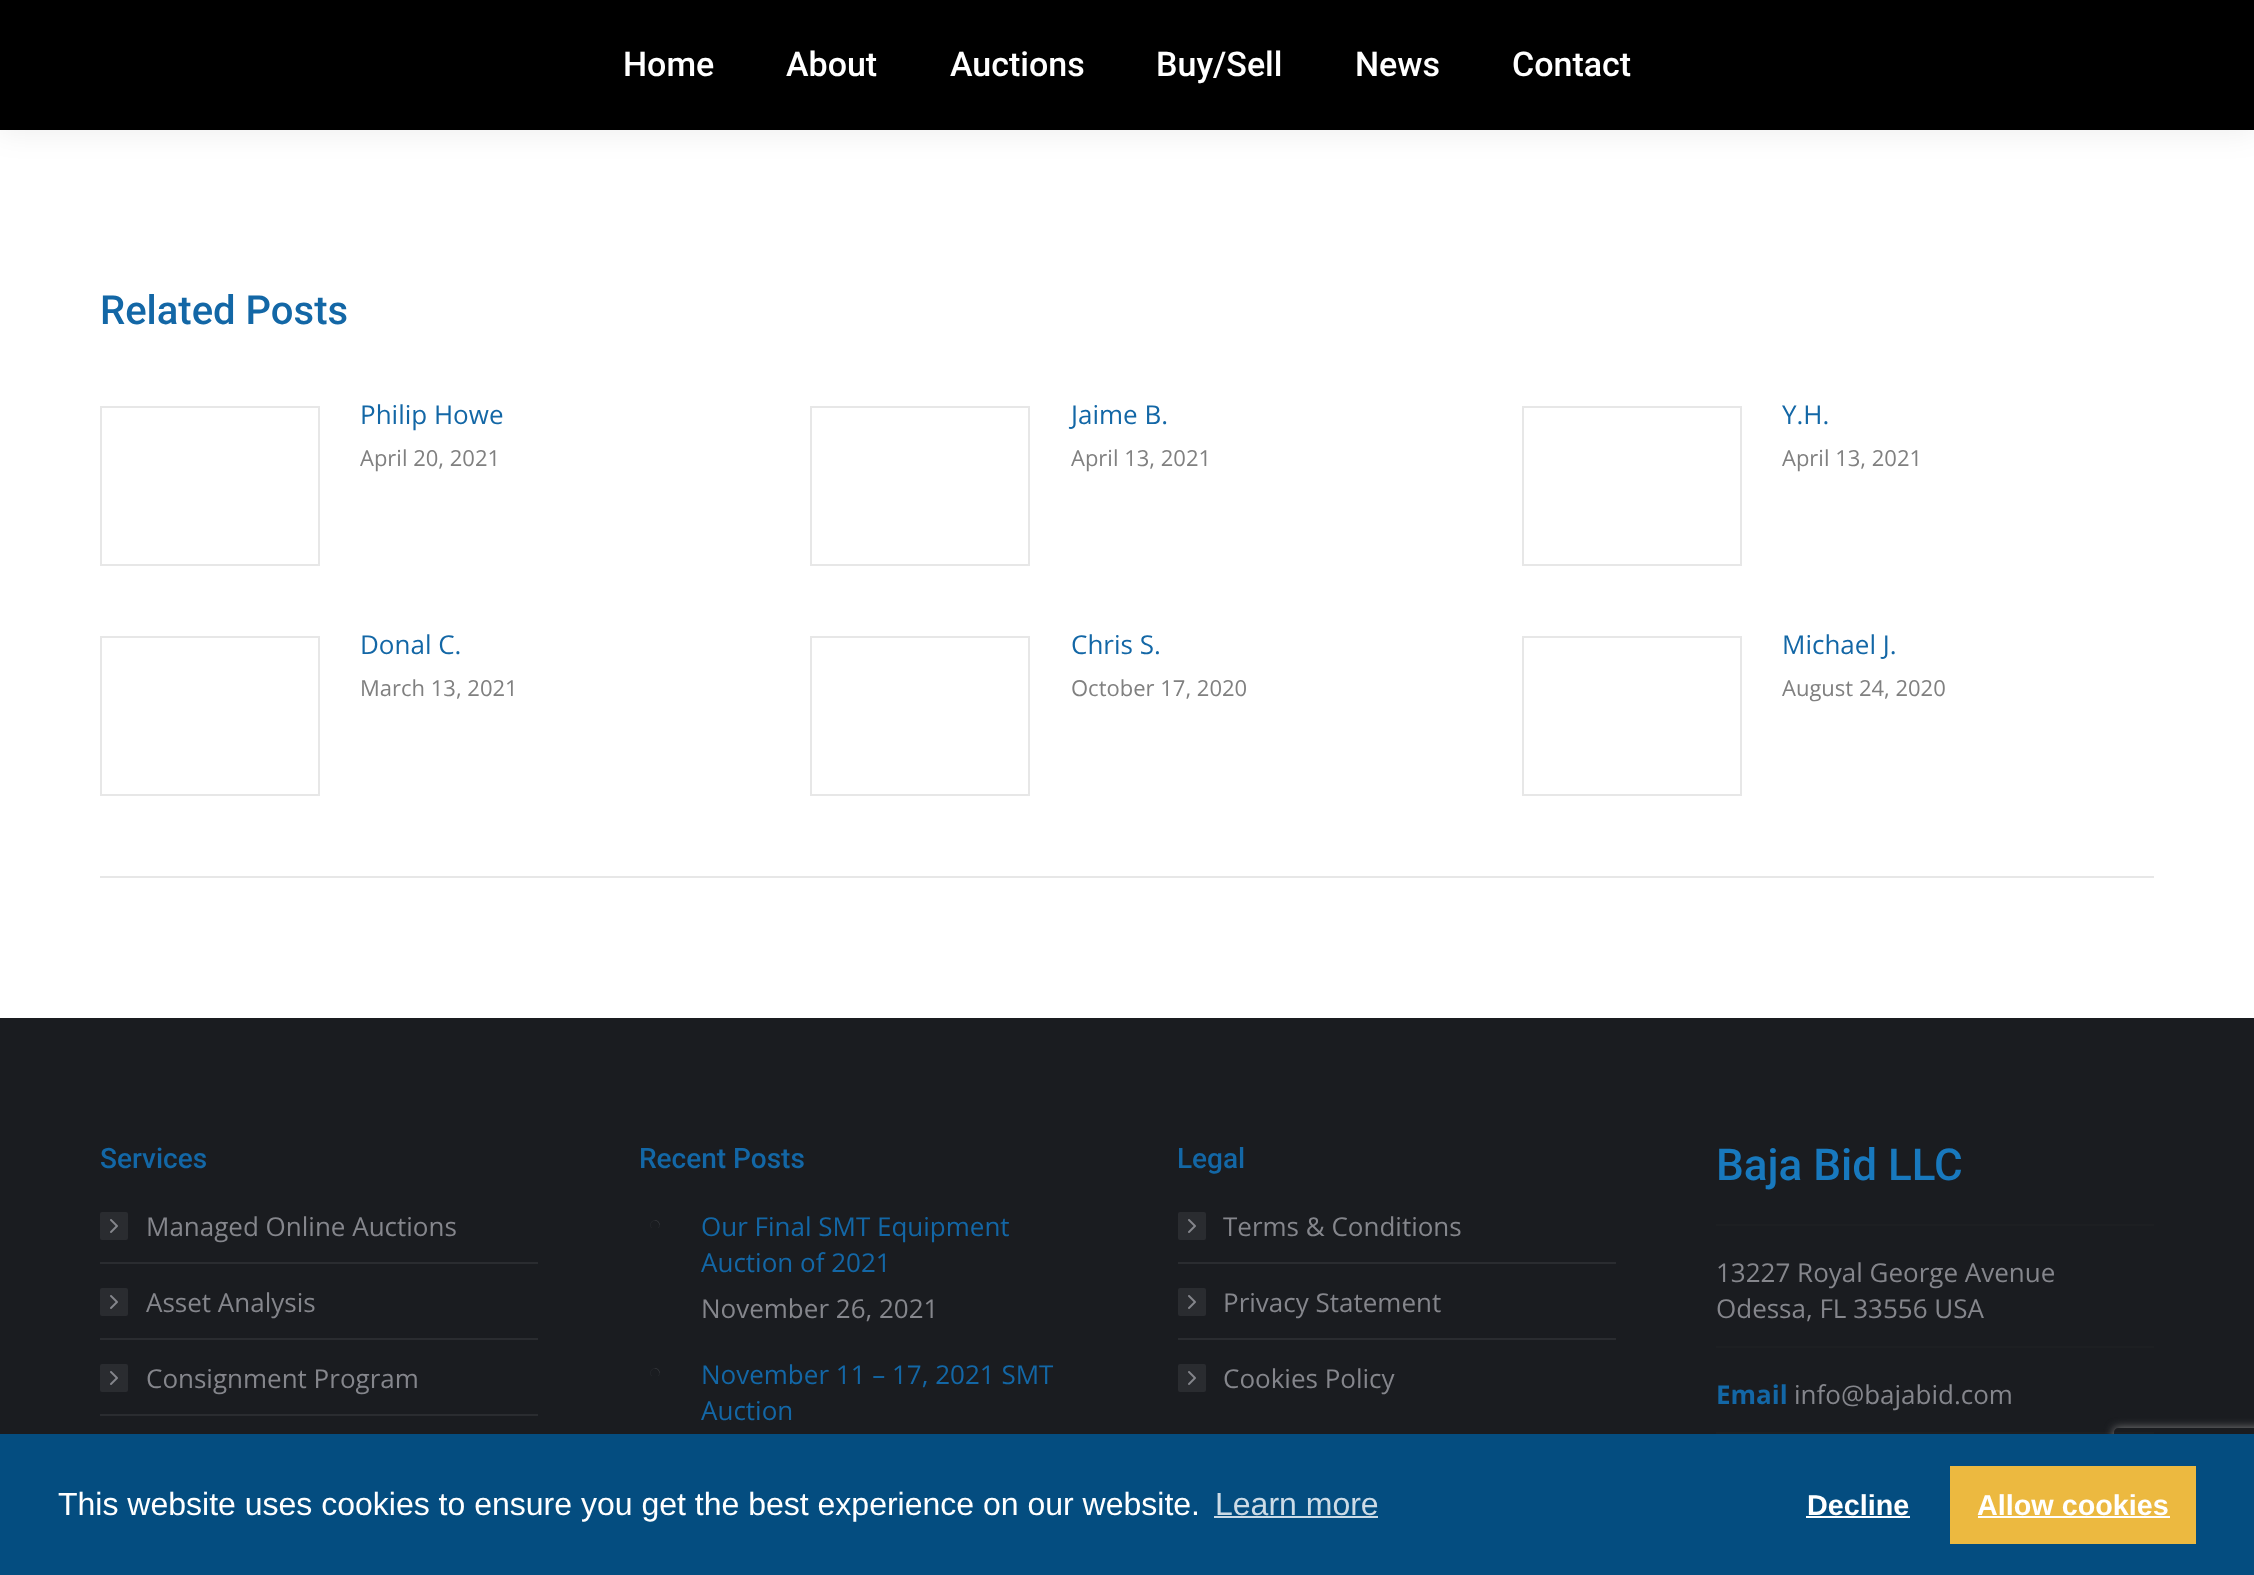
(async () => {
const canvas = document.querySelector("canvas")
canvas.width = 2254
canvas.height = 1575
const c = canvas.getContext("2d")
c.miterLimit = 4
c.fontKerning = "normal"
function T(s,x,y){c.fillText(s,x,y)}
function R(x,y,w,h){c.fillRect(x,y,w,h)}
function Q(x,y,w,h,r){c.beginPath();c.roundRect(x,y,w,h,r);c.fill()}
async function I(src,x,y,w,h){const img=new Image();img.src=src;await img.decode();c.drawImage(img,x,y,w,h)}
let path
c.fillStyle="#fff"
R(0,0,2254,1575)
c.fillStyle="#00000012"
c.filter="blur(15px)"
c.beginPath()
c.rect(-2,-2,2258,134)
c.fill()
c.filter="none"
c.fillStyle="#000"
R(0,0,2254,130)
c.font="500 34px Roboto"
c.fillStyle="#fff"
T("Home",623,76)
T("About",786,76)
T("Auctions",950,76)
T("Buy/Sell",1156,76)
T("News",1355,76)
T("Contact",1512,76)
c.fillStyle="#e7e7e7"
R(100,876,2054,2)
c.font="500 40px Roboto"
c.fillStyle="#1367a6"
T("Related Posts",100,324)
c.strokeStyle="#e7e7e7"
c.lineWidth=2
c.strokeRect(101,407,218,158)
c.font="26px Open Sans"
T("Philip Howe",360,424)
c.font="22px Open Sans"
c.fillStyle="#808080"
T("April 20, 2021",360,466)
c.strokeRect(811,407,218,158)
c.font="26px Open Sans"
c.fillStyle="#1367a6"
T("Jaime B.",1071,424)
c.font="22px Open Sans"
c.fillStyle="#808080"
T("April 13, 2021",1071,466)
c.strokeRect(1523,407,218,158)
c.font="26px Open Sans"
c.fillStyle="#1367a6"
T("Y.H.",1782,424)
c.font="22px Open Sans"
c.fillStyle="#808080"
T("April 13, 2021",1782,466)
c.strokeRect(101,637,218,158)
c.font="26px Open Sans"
c.fillStyle="#1367a6"
T("Donal C.",360,654)
c.font="22px Open Sans"
c.fillStyle="#808080"
T("March 13, 2021",360,696)
c.strokeRect(811,637,218,158)
c.font="26px Open Sans"
c.fillStyle="#1367a6"
T("Chris S.",1071,654)
c.font="22px Open Sans"
c.fillStyle="#808080"
T("October 17, 2020",1071,696)
c.strokeRect(1523,637,218,158)
c.font="26px Open Sans"
c.fillStyle="#1367a6"
T("Michael J.",1782,654)
c.font="22px Open Sans"
c.fillStyle="#808080"
T("August 24, 2020",1782,696)
c.fillStyle="#1a1c20"
R(0,1018,2254,416)
c.font="500 28px Roboto"
c.fillStyle="#1367a6"
T("Services",100,1168)
c.fillStyle="#2a2c30"
Q(100,1212,28,28,2)
c.font="26px Open Sans"
c.fillStyle="#85868c"
T("Managed Online Auctions",146,1236)
await I("1.png",110,1219,8,14)
c.fillStyle="#2a2c30"
R(100,1262,438,2)
Q(100,1288,28,28,2)
c.fillStyle="#85868c"
T("Asset Analysis",146,1312)
await I("1.png",110,1295,8,14)
c.fillStyle="#2a2c30"
R(100,1338,438,2)
Q(100,1364,28,28,2)
c.fillStyle="#85868c"
T("Consignment Program",146,1388)
await I("1.png",110,1371,8,14)
c.fillStyle="#2a2c30"
R(100,1414,438,2)
c.font="500 28px Roboto"
c.fillStyle="#1367a6"
T("Recent Posts",639,1168)
await I("2.png",650,1220,10,8)
c.font="26px Open Sans"
T("Our Final SMT Equipment",701,1236)
T("Auction of 2021",701,1272)
c.fillStyle="#85868c"
T("November 26, 2021",701,1318)
await I("2.png",650,1368,10,8)
c.fillStyle="#1367a6"
T("November 11 – 17, 2021 SMT",701,1384)
T("Auction",701,1420)
c.font="500 28px Roboto"
T("Legal",1177,1168)
c.fillStyle="#2a2c30"
Q(1178,1212,28,28,2)
c.font="26px Open Sans"
c.fillStyle="#85868c"
T("Terms & Conditions",1223,1236)
await I("1.png",1188,1219,8,14)
c.fillStyle="#2a2c30"
R(1178,1262,438,2)
Q(1178,1288,28,28,2)
c.fillStyle="#85868c"
T("Privacy Statement",1223,1312)
await I("1.png",1188,1295,8,14)
c.fillStyle="#2a2c30"
R(1178,1338,438,2)
Q(1178,1364,28,28,2)
c.fillStyle="#85868c"
T("Cookies Policy",1223,1388)
await I("1.png",1188,1371,8,14)
c.font="500 44px Roboto"
c.fillStyle="#1879be"
T("Baja Bid LLC",1716,1180)
c.fillStyle="#1d1f22"
R(1716,1224,438,2)
c.font="26px Open Sans"
c.fillStyle="#85868c"
T("13227 Royal George Avenue",1716,1282)
T("Odessa, FL 33556 USA",1716,1318)
c.fillStyle="#1d1f22"
R(1716,1346,438,2)
c.font="bold 26px Open Sans"
c.fillStyle="#1367a6"
T("Email",1716,1404)
c.font="26px Open Sans"
c.fillStyle="#85868c"
T("info@bajabid.com",1794,1404)
c.fillStyle="#1d1f22"
R(1716,1432,438,2)
c.save()
path = new Path2D("M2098 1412h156v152h-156zm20 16h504c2 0 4 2 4 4v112c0 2-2 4-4 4h-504c-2 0-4-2-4-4v-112c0-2 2-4 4-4z")
c.clip(path,"evenodd")
c.fillStyle="#808080"
c.filter="blur(5px)"
c.beginPath()
c.roundRect(2114,1428,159,120,4)
c.fill()
c.filter="none"
c.restore()
c.fillStyle="#044d80"
R(0,1434,2254,141)
c.font="32px Liberation Sans"
c.fillStyle="#fff"
T("This website uses cookies to ensure you get the best experience on our website.",58,1515)
c.fillStyle="#cddbe6"
T("Learn more",1215,1515)
R(1214,1516,164,2)
c.font="bold 28.75px Liberation Sans"
c.fillStyle="#fff"
T("Decline",1807,1515)
R(1806,1516,104,2)
c.fillStyle="#ecb940"
R(1950,1466,246,78)
c.fillStyle="#fff"
T("Allow cookies",1977,1515)
R(1978,1516,192,2)
})()
